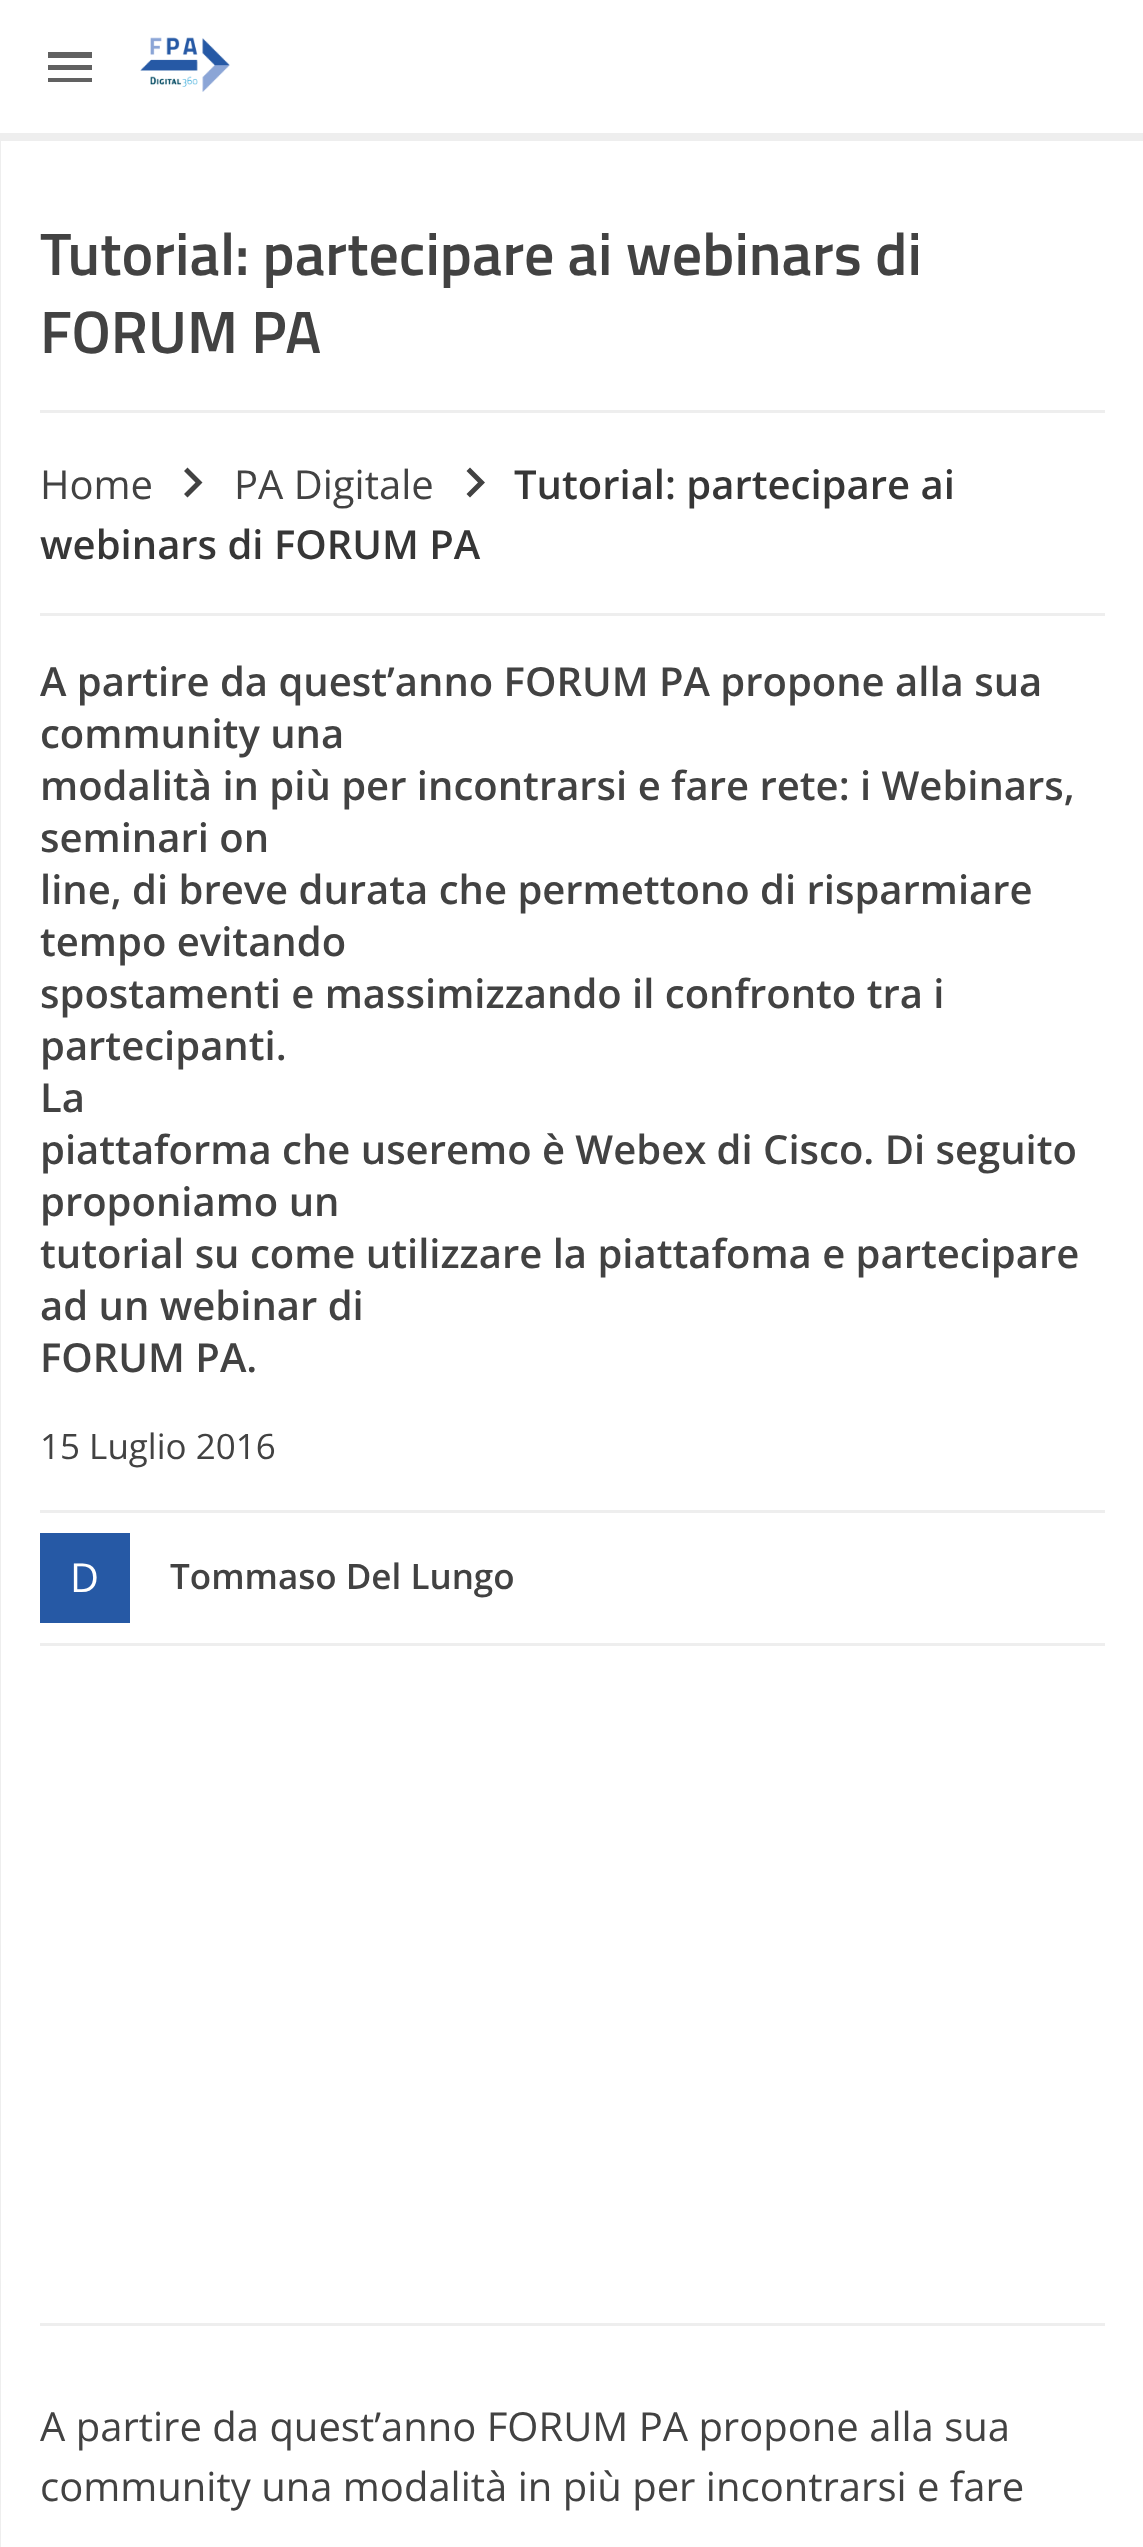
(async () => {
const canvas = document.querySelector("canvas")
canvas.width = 1143
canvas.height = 2547
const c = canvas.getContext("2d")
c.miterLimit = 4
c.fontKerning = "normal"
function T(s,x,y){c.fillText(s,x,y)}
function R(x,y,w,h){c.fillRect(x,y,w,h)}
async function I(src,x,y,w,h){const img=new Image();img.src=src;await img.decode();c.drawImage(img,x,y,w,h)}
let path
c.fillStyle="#fff"
R(0,0,1143,2547)
c.fillStyle="#eee"
R(0,133,1143,8)
c.fillStyle="#616161"
path = new Path2D("M48 82h44v-4h-44zm0-12h44v-5h-44zm0-18v6h44v-6z")
c.fill(path)
await I("1.png",140,37,90,55)
c.fillStyle="#eee"
R(0,140,1,2407)
R(40,410,1065,3)
c.font="600 60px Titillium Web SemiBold"
c.fillStyle="#424242"
T("Tutorial: partecipare ai webinars di",40,275)
T("FORUM PA",40,353)
c.fillStyle="#eee"
R(40,613,1065,3)
c.font="40px Open Sans"
c.fillStyle="#424242"
T("Home",40,499)
path = new Path2D("M184 494l11.5-11.5l-11.5-11.5l3.5-3.5l15 15l-15 15z")
c.fill(path)
T("PA Digitale",234,499)
path = new Path2D("M466.5 494l11.5-11.5l-11.5-11.5l3.5-3.5l15 15l-15 15z")
c.fill(path)
c.font="600 40px Open Sans"
c.fillStyle="#363636"
T("Tutorial: partecipare ai",514,499)
T("webinars di FORUM PA",40,559)
c.fillStyle="#eee"
R(40,1510,1065,3)
c.fillStyle="#424242"
T("A partire da quest’anno FORUM PA propone alla sua",40,696)
T("community una",40,748)
T("modalità in più per incontrarsi e fare rete: i Webinars,",40,800)
T("seminari on",40,852)
T("line, di breve durata che permettono di risparmiare",40,904)
T("tempo evitando",40,956)
T("spostamenti e massimizzando il confronto tra i",40,1008)
T("partecipanti.",40,1060)
T("La",40,1112)
T("piattaforma che useremo è Webex di Cisco. Di seguito",40,1164)
T("proponiamo un",40,1216)
T("tutorial su come utilizzare la piattafoma e partecipare",40,1268)
T("ad un webinar di",40,1320)
T("FORUM PA.",40,1372)
c.font="35px Open Sans"
T("15 Luglio 2016",40,1459)
c.fillStyle="#eee"
R(40,1643,1065,3)
c.fillStyle="#2659a5"
R(40,1533,90,90)
c.font="40px Open Sans"
c.fillStyle="#fff"
T("D",70,1592)
c.font="600 35px Open Sans"
c.fillStyle="#424242"
T("Tommaso Del Lungo",170,1589)
c.fillStyle="#eee"
R(40,2323,1065,3)
c.font="40px Open Sans"
c.fillStyle="#424242"
T("A partire da quest’anno FORUM PA propone alla sua",40,2441)
T("community una modalità in più per incontrarsi e fare",40,2501)
})()
